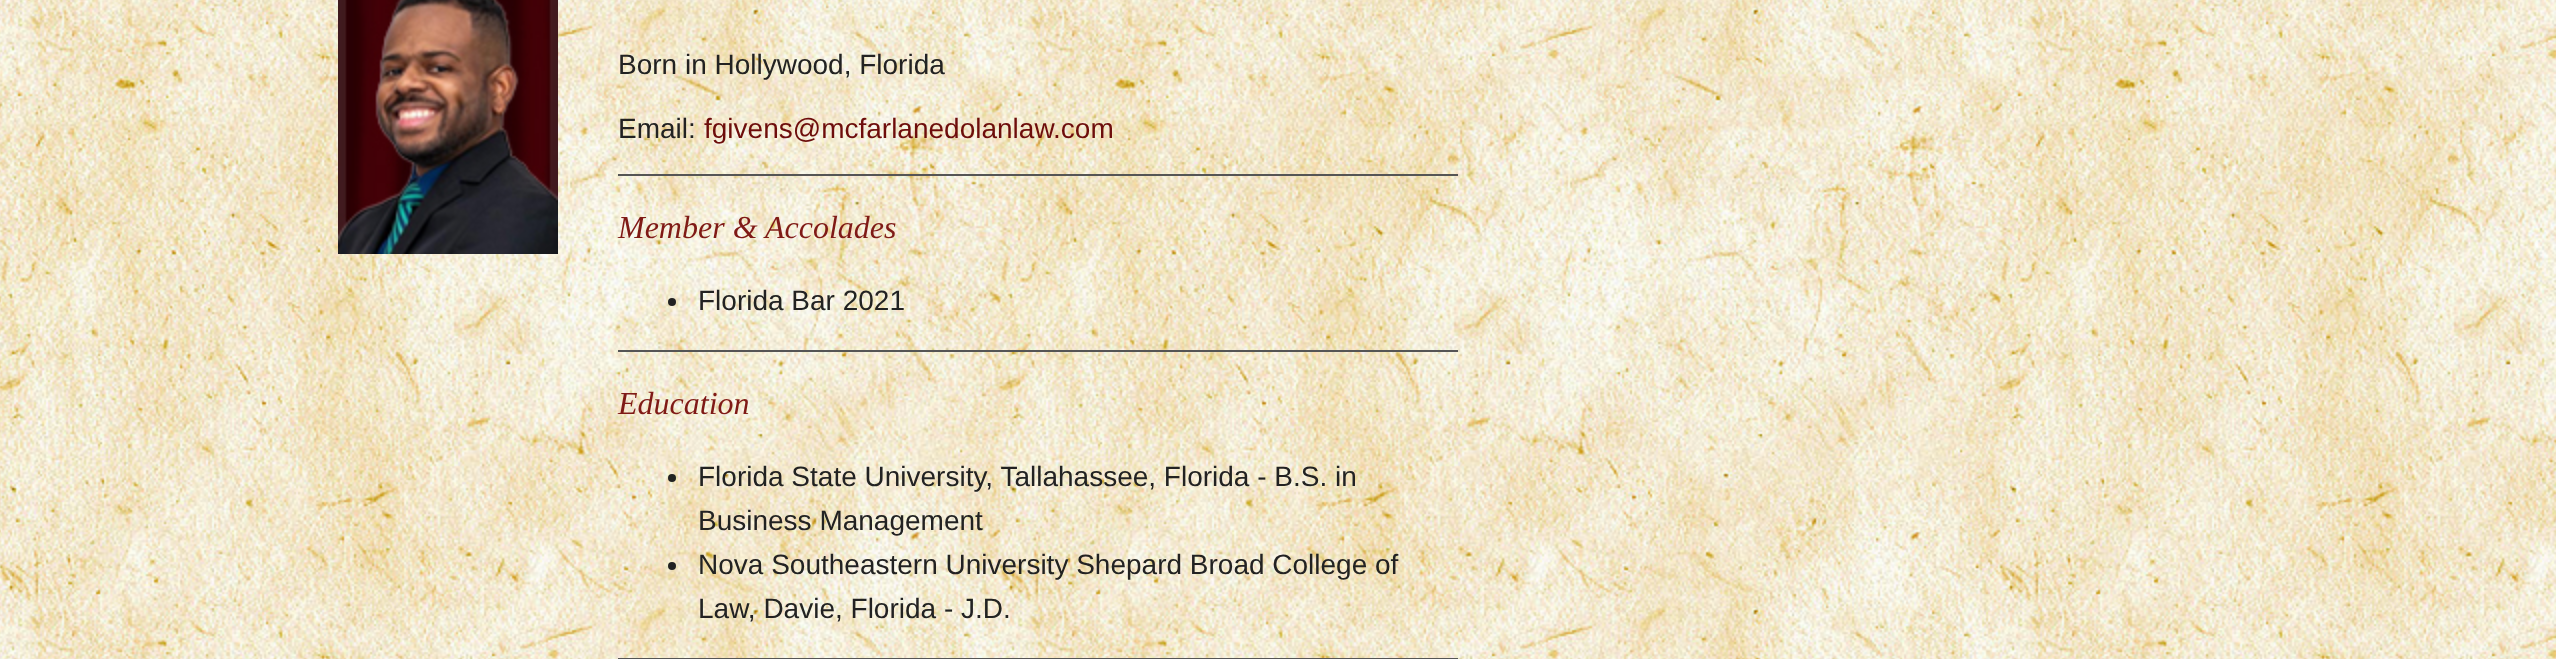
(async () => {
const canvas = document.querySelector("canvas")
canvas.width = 2556
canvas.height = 659
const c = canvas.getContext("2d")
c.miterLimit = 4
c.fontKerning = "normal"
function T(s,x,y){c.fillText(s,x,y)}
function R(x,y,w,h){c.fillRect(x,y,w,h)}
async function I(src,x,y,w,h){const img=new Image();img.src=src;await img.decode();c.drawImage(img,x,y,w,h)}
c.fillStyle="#fff"
R(0,0,2556,659)
await I("1.png",0,0,2556,659)
await I("2.png",338,0,220,254)
c.font="28px Liberation Sans"
c.fillStyle="#222"
T("Born in Hollywood, Florida",618,74)
T("Email:",618,138)
c.fillStyle="#6d0d0b"
T("fgivens@mcfarlanedolanlaw.com",704,138)
c.fillStyle="#555"
R(618,174,840,2)
c.font="italic 32px Liberation Serif"
c.fillStyle="#7f1a16"
T("Member & Accolades",618,238)
c.fillStyle="#222"
c.beginPath()
c.arc(672,302,4,0,7)
c.fill()
c.font="28px Liberation Sans"
T("Florida Bar 2021",698,310)
c.fillStyle="#555"
R(618,350,840,2)
c.font="italic 32px Liberation Serif"
c.fillStyle="#7f1a16"
T("Education",618,414)
c.fillStyle="#222"
c.beginPath()
c.arc(672,478,4,0,7)
c.fill()
c.font="28px Liberation Sans"
T("Florida State University, Tallahassee, Florida - B.S. in",698,486)
T("Business Management",698,530)
c.beginPath()
c.arc(672,566,4,0,7)
c.fill()
T("Nova Southeastern University Shepard Broad College of",698,574)
T("Law, Davie, Florida - J.D.",698,618)
c.fillStyle="#555"
R(618,658,840,1)
})()
